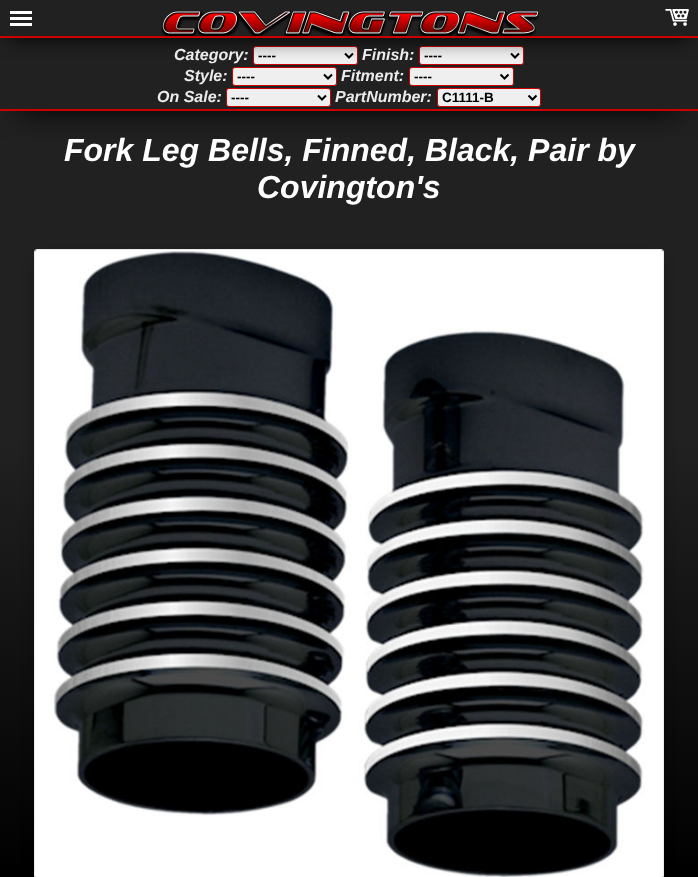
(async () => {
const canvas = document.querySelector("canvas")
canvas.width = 698
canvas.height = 877
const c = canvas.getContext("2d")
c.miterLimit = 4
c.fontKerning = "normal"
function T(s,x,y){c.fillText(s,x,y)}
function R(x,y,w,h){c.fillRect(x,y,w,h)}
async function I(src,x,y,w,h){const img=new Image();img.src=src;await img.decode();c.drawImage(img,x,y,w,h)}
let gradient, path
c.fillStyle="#fff"
R(0,0,698,877)
gradient = c.createLinearGradient(349,0,349,877)
gradient.addColorStop(.5,"#212121")
gradient.addColorStop(1,"#000")
c.fillStyle = gradient
R(0,0,698,877)
c.save()
c.beginPath()
c.rect(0,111,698,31)
c.clip()
c.fillStyle="#000"
c.filter="blur(15px)"
c.beginPath()
c.rect(20,76,658,35)
c.fill()
c.filter="none"
c.restore()
c.fillStyle="#efefef"
c.beginPath()
c.roundRect(253.5,46.5,104,18,2.5)
c.fill()
c.strokeStyle="#c00"
c.stroke()
path = new Path2D("M345 53.5l4 4l4-4")
c.strokeStyle="#000"
c.lineWidth=2
c.stroke(path)
c.beginPath()
c.roundRect(419.5,46.5,104,18,2.5)
c.fill()
c.strokeStyle="#c00"
c.lineWidth=1
c.stroke()
path = new Path2D("M511 53.5l4 4l4-4")
c.strokeStyle="#000"
c.lineWidth=2
c.stroke(path)
c.beginPath()
c.roundRect(232.5,67.5,104,18,2.5)
c.fill()
c.strokeStyle="#c00"
c.lineWidth=1
c.stroke()
c.beginPath()
c.roundRect(409.5,67.5,104,18,2.5)
c.fill()
c.stroke()
c.save()
c.beginPath()
c.rect(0,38,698,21)
c.clip()
c.fillStyle="#000"
c.filter="blur(10px)"
c.beginPath()
c.rect(10,20,678,18)
c.fill()
c.filter="none"
c.restore()
await I("1.png",10,11,22,15)
await I("2.png",161,10,378,26)
await I("3.png",665,9,24,17)
c.fillStyle="#c00"
R(0,36,698,2)
c.font="italic bold 16px Liberation Sans"
c.fillStyle="#ebebeb"
T("Category:",174,60)
c.font="bold 13.5px Liberation Sans"
c.fillStyle="#000"
T("----",258,60)
c.font="italic bold 16px Liberation Sans"
c.fillStyle="#ebebeb"
T("Finish:",362,60)
c.font="bold 13.5px Liberation Sans"
c.fillStyle="#000"
T("----",424,60)
c.font="italic bold 16px Liberation Sans"
c.fillStyle="#ebebeb"
T("Style:",184,81)
path = new Path2D("M324 74.5l4 4l4-4")
c.strokeStyle="#000"
c.lineWidth=2
c.stroke(path)
c.font="bold 13.5px Liberation Sans"
c.fillStyle="#000"
T("----",237,81)
c.font="italic bold 16px Liberation Sans"
c.fillStyle="#ebebeb"
T("Fitment:",341,81)
path = new Path2D("M500.5 74.5l4 4l4-4")
c.stroke(path)
c.font="bold 13.5px Liberation Sans"
c.fillStyle="#000"
T("----",414,81)
c.font="italic bold 16px Liberation Sans"
c.fillStyle="#ebebeb"
T("On Sale:",157,102)
c.fillStyle="#efefef"
c.beginPath()
c.roundRect(226.5,88.5,104,18,2.5)
c.fill()
c.strokeStyle="#c00"
c.lineWidth=1
c.stroke()
path = new Path2D("M318 95.5l4 4l4-4")
c.strokeStyle="#000"
c.lineWidth=2
c.stroke(path)
c.font="bold 13.5px Liberation Sans"
c.fillStyle="#000"
T("----",231,102)
c.font="italic bold 16px Liberation Sans"
c.fillStyle="#ebebeb"
T("PartNumber:",335,102)
c.fillStyle="#efefef"
c.beginPath()
c.roundRect(437.5,88.5,103,18,2.5)
c.fill()
c.strokeStyle="#c00"
c.lineWidth=1
c.stroke()
path = new Path2D("M528.5 95.5l4 4l4-4")
c.strokeStyle="#000"
c.lineWidth=2
c.stroke(path)
c.font="bold 13.5px Liberation Sans"
c.fillStyle="#000"
T("C1111-B",442,102)
c.fillStyle="#c00"
R(0,109,698,2)
c.font="italic bold 32px Liberation Sans"
c.fillStyle="#fff"
T("Fork Leg Bells, Finned, Black, Pair by",64,161)
T("Covington's",257,198)
c.fillStyle="#000"
c.filter="blur(10px)"
c.beginPath()
c.rect(44,269,610,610)
c.fill()
c.filter="none"
c.beginPath()
c.roundRect(34.5,249.5,629,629,2.5)
c.strokeStyle="#ebebeb"
c.lineWidth=1
c.stroke()
await I("4.png",35,250,628,627)
})()
